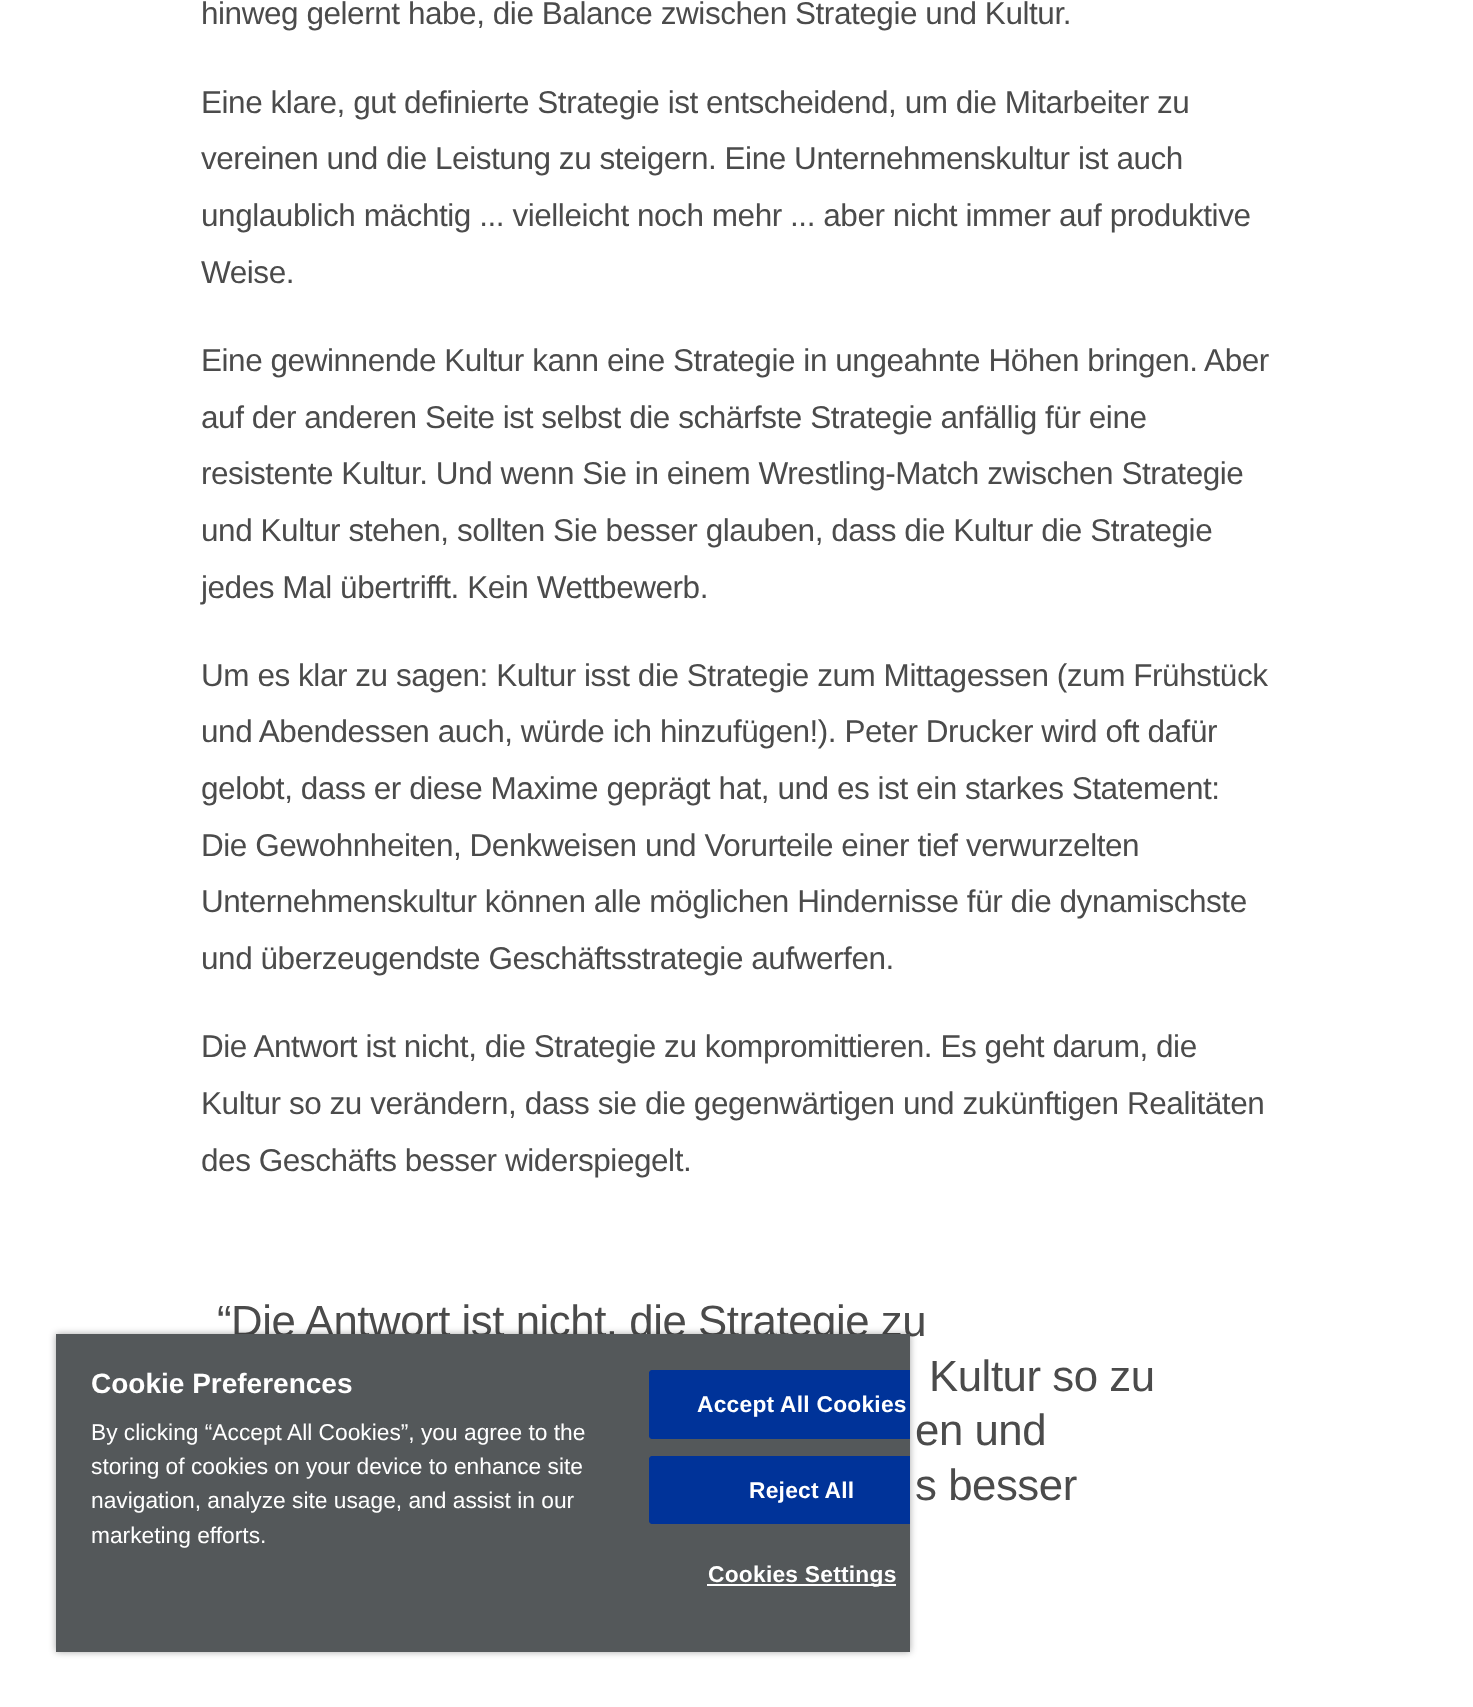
(async () => {
const canvas = document.querySelector("canvas")
canvas.width = 1473
canvas.height = 1707
const c = canvas.getContext("2d")
c.miterLimit = 4
c.fontKerning = "normal"
function T(s,x,y){c.fillText(s,x,y)}
function R(x,y,w,h){c.fillRect(x,y,w,h)}
c.fillStyle="#fff"
R(0,0,1473,1707)
c.letterSpacing="-0.45px"
c.font="31.5px Liberation Sans"
c.fillStyle="#4b4b4b"
T("hinweg gelernt habe, die Balance zwischen Strategie und Kultur.",201,24)
T("Eine klare, gut definierte Strategie ist entscheidend, um die Mitarbeiter zu",201,113)
T("vereinen und die Leistung zu steigern. Eine Unternehmenskultur ist auch",201,169)
T("unglaublich mächtig ... vielleicht noch mehr ... aber nicht immer auf produktive",201,226)
T("Weise.",201,283)
T("Eine gewinnende Kultur kann eine Strategie in ungeahnte Höhen bringen. Aber",201,371)
T("auf der anderen Seite ist selbst die schärfste Strategie anfällig für eine",201,428)
T("resistente Kultur. Und wenn Sie in einem Wrestling-Match zwischen Strategie",201,484)
T("und Kultur stehen, sollten Sie besser glauben, dass die Kultur die Strategie",201,541)
T("jedes Mal übertrifft. Kein Wettbewerb.",201,598)
T("Um es klar zu sagen: Kultur isst die Strategie zum Mittagessen (zum Frühstück",201,686)
T("und Abendessen auch, würde ich hinzufügen!). Peter Drucker wird oft dafür",201,742)
T("gelobt, dass er diese Maxime geprägt hat, und es ist ein starkes Statement:",201,799)
T("Die Gewohnheiten, Denkweisen und Vorurteile einer tief verwurzelten",201,856)
T("Unternehmenskultur können alle möglichen Hindernisse für die dynamischste",201,912)
T("und überzeugendste Geschäftsstrategie aufwerfen.",201,969)
T("Die Antwort ist nicht, die Strategie zu kompromittieren. Es geht darum, die",201,1057)
T("Kultur so zu verändern, dass sie die gegenwärtigen und zukünftigen Realitäten",201,1114)
T("des Geschäfts besser widerspiegelt.",201,1171)
c.font="43.75px Liberation Sans"
T("“Die Antwort ist nicht, die Strategie zu",217,1336)
T("Kultur so zu",929,1391)
T("en und",915,1445)
T("s besser",915,1500)
c.fillStyle="#00000059"
c.filter="blur(3.5px)"
c.beginPath()
c.rect(56,1334,854,318)
c.fill()
c.filter="none"
c.fillStyle="#54585a"
R(56,1334,854,318)
c.letterSpacing="0px"
c.font="bold 28px Liberation Sans"
c.fillStyle="#fff"
T("Cookie Preferences",91,1393)
c.font="22.75px Liberation Sans"
T("By clicking “Accept All Cookies”, you agree to the",91,1440)
T("storing of cookies on your device to enhance site",91,1474)
T("navigation, analyze site usage, and assist in our",91,1508)
T("marketing efforts.",91,1543)
c.fillStyle="#039"
c.beginPath()
c.roundRect(649,1370,261,69,[4,0,0,4])
c.fill()
c.save()
c.beginPath()
c.rect(56,1334,854,318)
c.clip()
c.beginPath()
c.roundRect(650,1371,305,67,3)
c.strokeStyle="#039"
c.lineWidth=2
c.stroke()
c.restore()
c.letterSpacing="0.25px"
c.font="bold 22.75px Liberation Sans"
c.fillStyle="#fff"
T("Accept All Cookies",697,1412)
c.fillStyle="#039"
c.beginPath()
c.roundRect(649,1456,261,68,[4,0,0,4])
c.fill()
c.save()
c.beginPath()
c.rect(56,1334,854,318)
c.clip()
c.beginPath()
c.roundRect(650,1457,305,66,3)
c.strokeStyle="#039"
c.lineWidth=2
c.stroke()
c.restore()
c.fillStyle="#fff"
T("Reject All",749,1498)
R(707,1584,189,2)
T("Cookies Settings",708,1582)
})()
